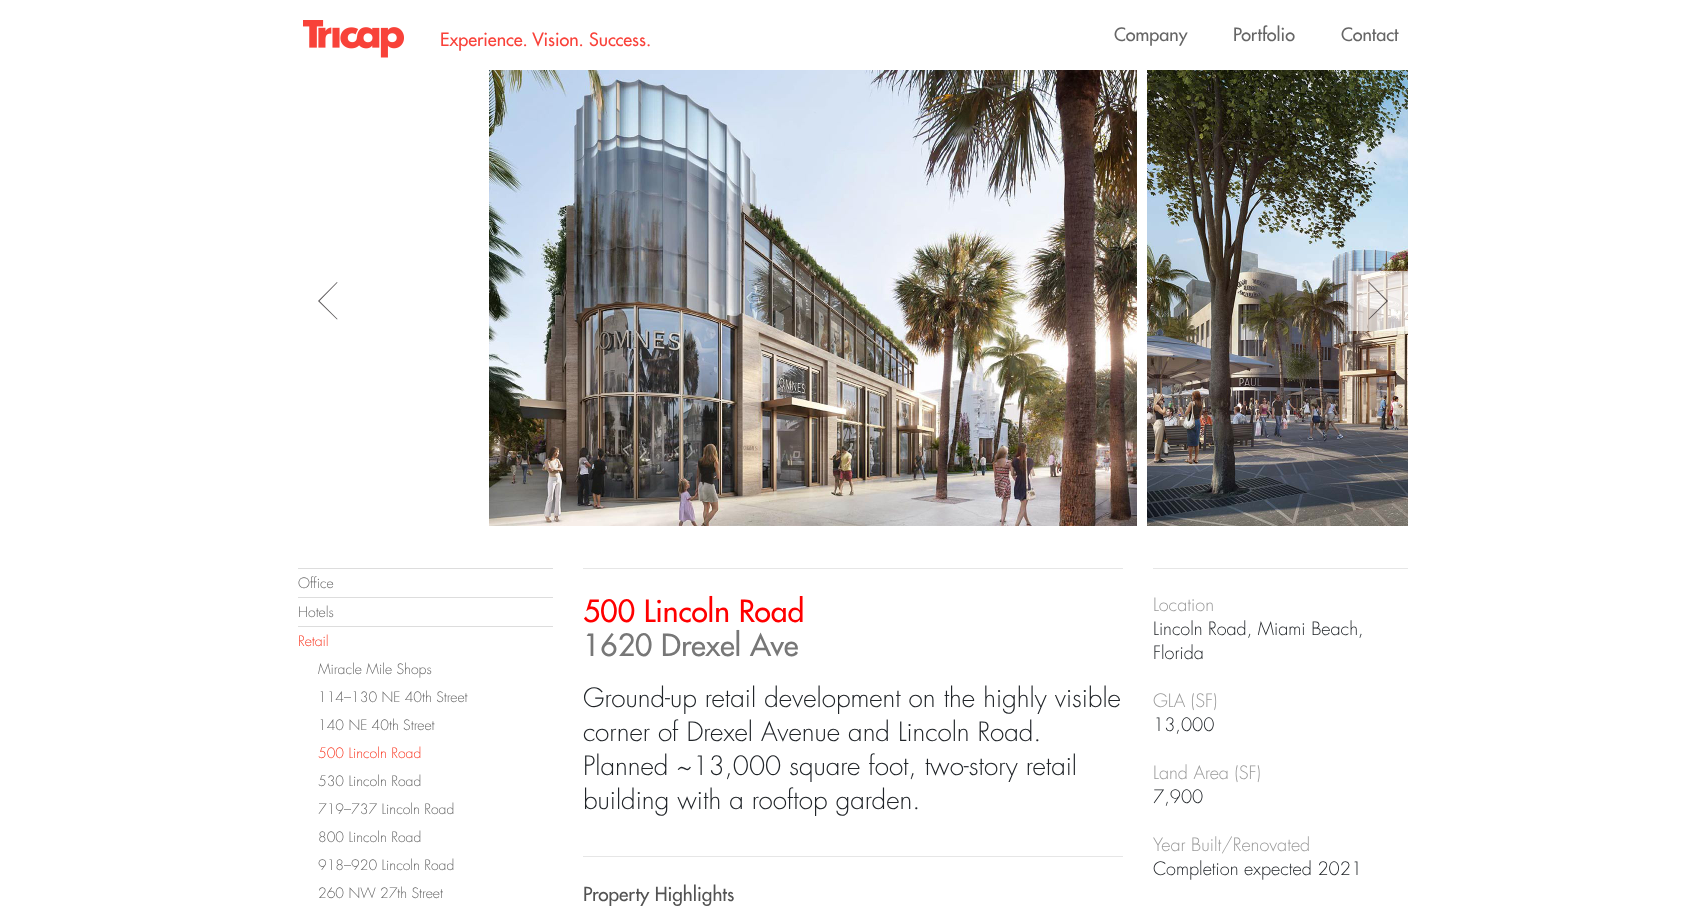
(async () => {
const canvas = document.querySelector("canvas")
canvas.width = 1706
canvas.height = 912
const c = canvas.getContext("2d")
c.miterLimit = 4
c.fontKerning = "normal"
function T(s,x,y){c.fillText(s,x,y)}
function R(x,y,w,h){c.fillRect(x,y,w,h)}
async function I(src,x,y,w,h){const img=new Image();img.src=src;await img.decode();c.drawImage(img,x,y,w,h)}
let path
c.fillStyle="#fff"
R(0,0,1706,912)
await I("1.png",303,20,101,38)
c.font="500 18px Futura"
c.fillStyle="#f9423a"
T("Experience. Vision. Success.",440,46)
c.fillStyle="#666"
T("Company",1114,41)
T("Portfolio",1233,41)
T("Contact",1341,41)
await I("2.png",489,70,648,456)
await I("3.png",1147,70,261,456)
c.fillStyle="#5a5758"
path = new Path2D("M337 282l.5 .5l-18 18.5l18 18l-.5 .5l-19-18.5z")
c.fill(path,"evenodd")
c.fillStyle="#ffffff99"
R(1348,271,60,60)
c.fillStyle="#231f20bf"
path = new Path2D("M1369 282l-.5 .5l18 18.5l-18 18l.5 .5l19-18.5z")
c.fill(path,"evenodd")
c.fillStyle="#ddd"
R(298,568,255,1)
c.font="300 14px Futura"
c.fillStyle="#666"
T("Office",298,588)
c.fillStyle="#ddd"
R(298,597,255,1)
c.fillStyle="#666"
T("Hotels",298,617)
c.fillStyle="#ddd"
R(298,626,255,1)
c.fillStyle="#f93822"
T("Retail",298,646)
c.fillStyle="#666"
T("Miracle Mile Shops",318,674)
T("114–130 NE 40th Street",318,702)
T("140 NE 40th Street",318,730)
c.fillStyle="#f93822"
T("500 Lincoln Road",318,758)
c.fillStyle="#666"
T("530 Lincoln Road",318,786)
T("719–737 Lincoln Road",318,814)
T("800 Lincoln Road",318,842)
T("918–920 Lincoln Road",318,870)
T("260 NW 27th Street",318,898)
c.fillStyle="#e6e6e6"
R(583,568,540,1)
c.font="500 30px Futura"
c.fillStyle="#f00"
T("500 Lincoln Road",583,622)
c.fillStyle="#777"
T("1620 Drexel Ave",583,656)
c.font="300 26px Futura"
c.fillStyle="#212529"
T("Ground-up retail development on the highly visible",583,707)
T("corner of Drexel Avenue and Lincoln Road.",583,741)
T("Planned ~13,000 square foot, two-story retail",583,775)
T("building with a rooftop garden.",583,809)
c.fillStyle="#e6e6e6"
R(583,856,540,1)
c.font="500 19px Futura"
c.fillStyle="#535353"
T("Property Highlights",583,901)
c.fillStyle="#e6e6e6"
R(1153,568,255,1)
c.font="300 18px Futura"
c.fillStyle="#999"
T("Location",1153,611)
c.fillStyle="#212529"
T("Lincoln Road, Miami Beach,",1153,635)
T("Florida",1153,659)
c.fillStyle="#999"
T("GLA (SF)",1153,707)
c.fillStyle="#212529"
T("13,000",1153,731)
c.fillStyle="#999"
T("Land Area (SF)",1153,779)
c.fillStyle="#212529"
T("7,900",1153,803)
c.fillStyle="#999"
T("Year Built/Renovated",1153,851)
c.fillStyle="#212529"
T("Completion expected 2021",1153,875)
})()
